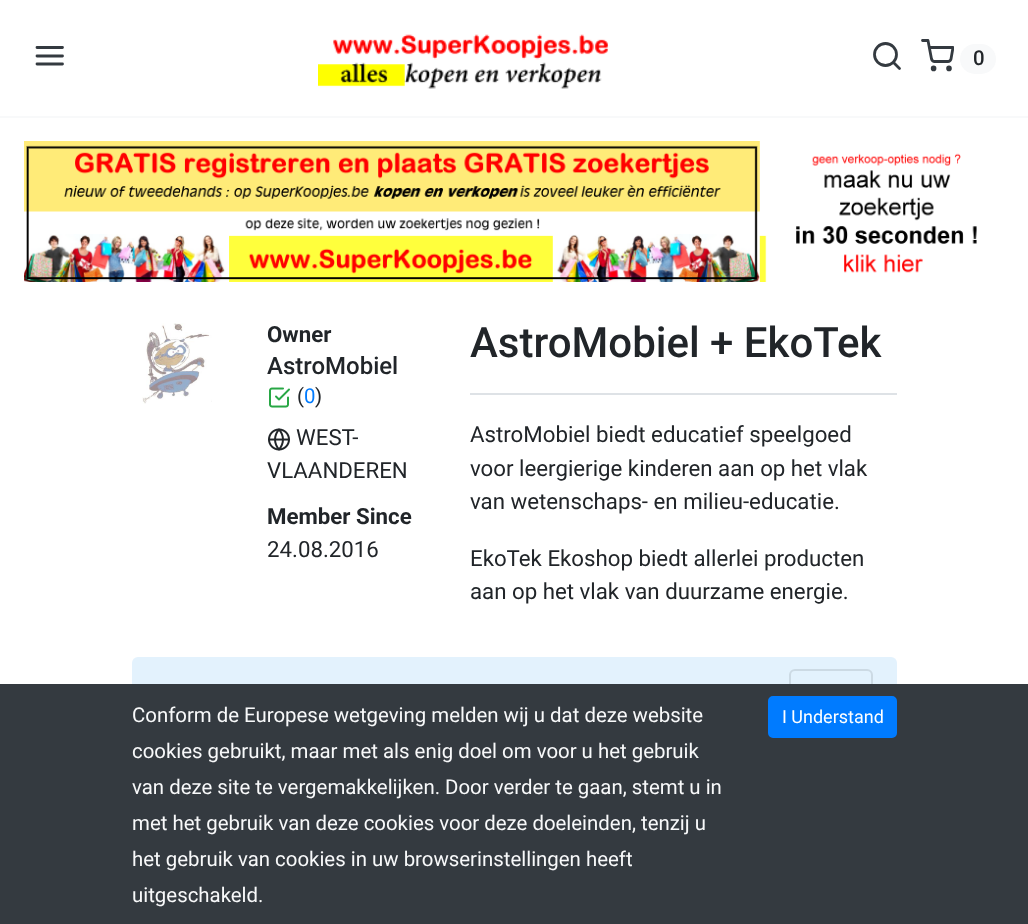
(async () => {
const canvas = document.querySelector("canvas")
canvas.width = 1028
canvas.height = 924
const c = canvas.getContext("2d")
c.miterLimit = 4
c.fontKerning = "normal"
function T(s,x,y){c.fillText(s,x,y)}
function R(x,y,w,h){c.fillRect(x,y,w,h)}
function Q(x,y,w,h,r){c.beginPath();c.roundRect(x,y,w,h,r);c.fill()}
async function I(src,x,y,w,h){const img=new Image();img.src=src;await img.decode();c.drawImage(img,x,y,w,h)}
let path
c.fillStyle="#fff"
R(0,0,1028,924)
c.fillStyle="#f8f9fa"
R(0,116,1028,2)
path = new Path2D("M37 56h25.5m-25.5-8.5h25.5m-25.5 16.5h25.5")
c.strokeStyle="#343a40"
c.lineWidth=2.8
c.lineCap="round"
c.lineJoin="round"
c.stroke(path)
await I("1.png",318,34,291,55)
c.beginPath()
c.arc(885.5,54.5,11,0,7)
c.stroke()
path = new Path2D("M899.5 68.5l-6-6")
c.stroke(path)
c.save()
c.beginPath()
c.rect(921,39,33,33)
c.clip()
path = new Path2D("M922.5 40.5h5.5l3.5 18.5c.5 1.5 1.5 2.5 3 2.5h13.5c1.5 0 2.5-1 3-2.5l2-11.5h-23.5")
c.stroke(path)
c.restore()
Q(960,44,36,30,15)
c.font="500 20.4px Roboto"
c.fillStyle="#212529"
T("0",973,65)
c.beginPath()
c.arc(933.6,68.4,1.4,0,7)
c.stroke()
c.beginPath()
c.arc(949,68.4,1.4,0,7)
c.stroke()
await I("2.png",24,141,953,141)
await I("3.png",142,323,70,81)
c.font="bold 22.25px Roboto"
T("Owner",267,342)
c.font="500 24px Roboto"
T("AstroMobiel",267,374)
await I("4.png",269,387,21,21)
c.font="20.4px Roboto"
T("(",297,403)
c.fillStyle="#007bff"
T("0",304,403)
c.fillStyle="#212529"
T(")",315,403)
await I("5.png",268,428,22,23)
c.font="22.25px Roboto"
T("WEST-",296,445)
T("VLAANDEREN",267,478)
c.font="bold 22.25px Roboto"
T("Member Since",267,524)
c.font="22.25px Roboto"
T("24.08.2016",267,557)
c.fillStyle="#dee2e6"
R(470,393,427,2)
c.font="500 42px Roboto"
c.fillStyle="#212529"
T("AstroMobiel + EkoTek",470,357)
c.font="22.25px Roboto"
T("AstroMobiel biedt educatief speelgoed",470,442)
T("voor leergierige kinderen aan op het vlak",470,476)
T("van wetenschaps- en milieu-educatie.",470,509)
T("EkoTek Ekoshop biedt allerlei producten",470,566)
T("aan op het vlak van duurzame energie.",470,599)
c.fillStyle="#e3f2fd"
Q(132,657,765,84,6)
c.beginPath()
c.roundRect(790,670,82,58,5)
c.strokeStyle="#ccdae4"
c.lineWidth=2
c.lineJoin="miter"
c.stroke()
c.fillStyle="#343a40"
R(0,684,1028,240)
c.font="20.4px Roboto"
c.fillStyle="#f8f9fa"
T("Conform de Europese wetgeving melden wij u dat deze website",132,722)
T("cookies gebruikt, maar met als enig doel om voor u het gebruik",132,758)
T("van deze site te vergemakkelijken. Door verder te gaan, stemt u in",132,794)
T("met het gebruik van deze cookies voor deze doeleinden, tenzij u",132,830)
T("het gebruik van cookies in uw browserinstellingen heeft",132,866)
T("uitgeschakeld.",132,902)
c.fillStyle="#007bff"
c.beginPath()
c.roundRect(769,697,127,40,4)
c.fill()
c.strokeStyle="#007bff"
c.stroke()
c.font="18px Roboto"
c.fillStyle="#fff"
T("I Understand",782,723)
})()
